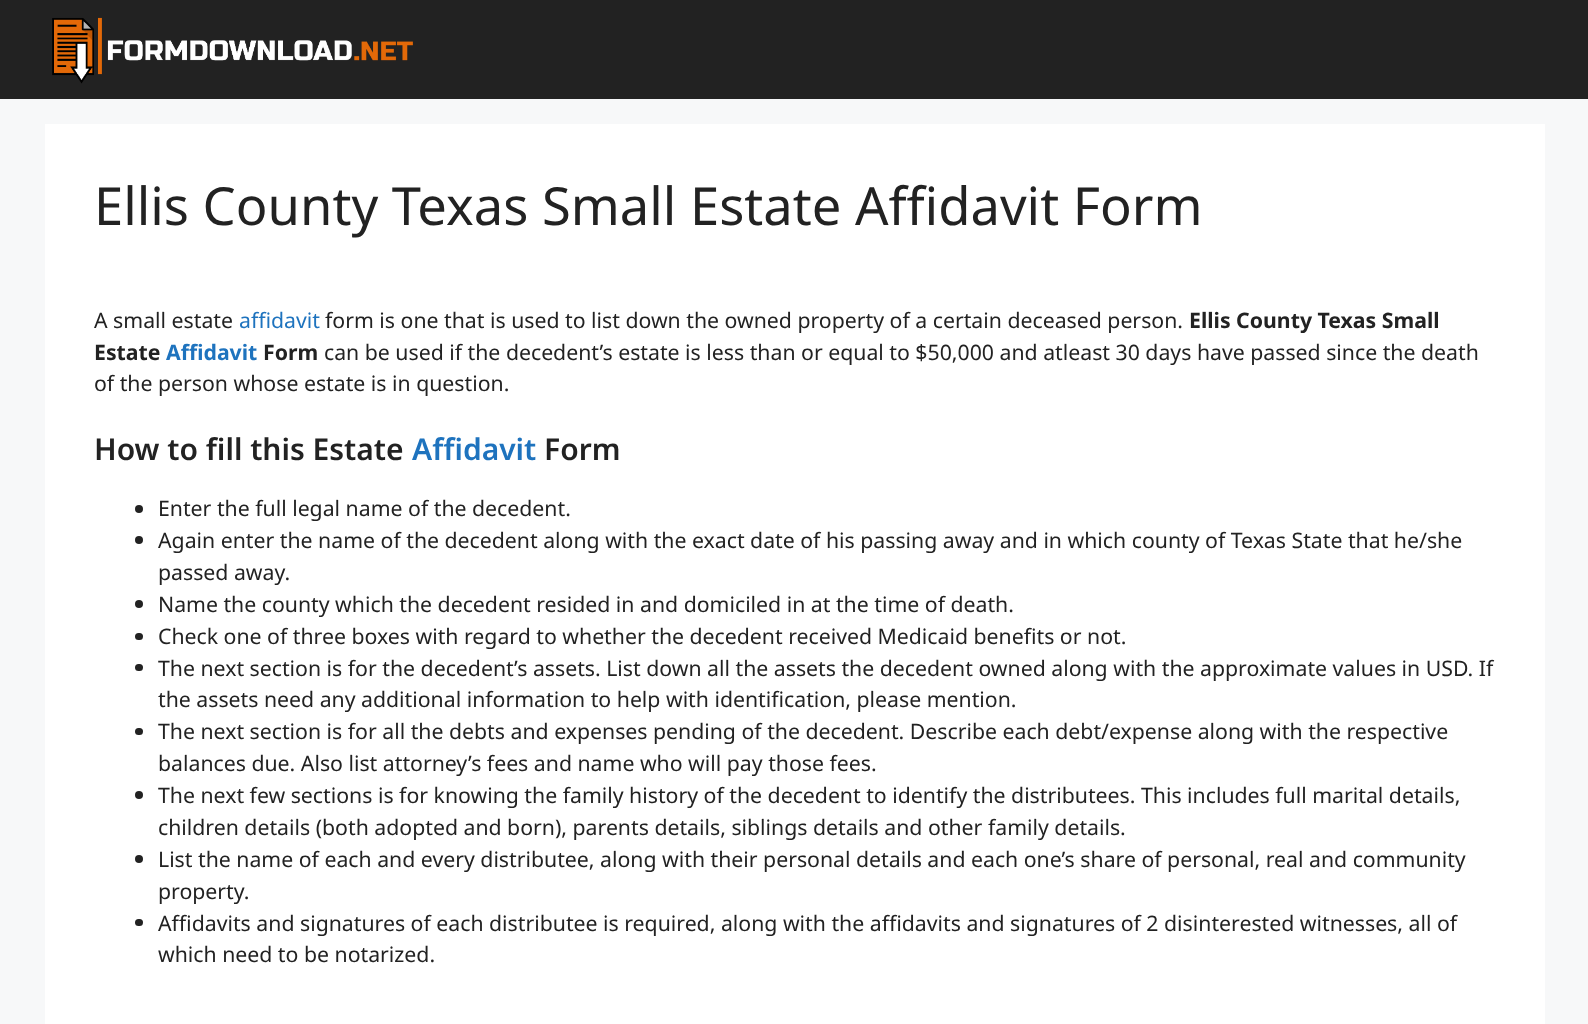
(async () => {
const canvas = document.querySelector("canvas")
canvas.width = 1588
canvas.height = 1024
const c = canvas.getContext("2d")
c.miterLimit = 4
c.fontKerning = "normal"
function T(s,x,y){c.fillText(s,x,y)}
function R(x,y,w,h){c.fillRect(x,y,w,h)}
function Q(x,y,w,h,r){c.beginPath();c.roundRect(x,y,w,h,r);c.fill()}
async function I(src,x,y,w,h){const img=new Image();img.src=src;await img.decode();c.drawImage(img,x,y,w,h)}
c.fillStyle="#f7f8f9"
R(0,0,1588,1024)
c.fillStyle="#222"
R(0,0,1588,99)
await I("1.png",52,17,361,67)
c.fillStyle="#fff"
R(45,124,1500,900)
c.font="52.5px Noto Sans"
c.fillStyle="#222"
T("Ellis County Texas Small Estate Affidavit Form",94,225)
c.font="21.25px Noto Sans"
T("A small estate",94,328)
c.fillStyle="#1e73be"
T("affidavit",239,328)
c.fillStyle="#222"
T("form is one that is used to list down the owned property of a certain deceased person.",325,328)
c.font="bold 21.25px Noto Sans"
T("Ellis County Texas Small",1189,328)
T("Estate",94,360)
c.fillStyle="#1e73be"
T("Affidavit",166,360)
c.fillStyle="#222"
T("Form",263,360)
c.font="21.25px Noto Sans"
T("can be used if the decedent’s estate is less than or equal to $50,000 and atleast 30 days have passed since the death",324,360)
T("of the person whose estate is in question.",94,391)
c.font="600 30px Noto Sans"
T("How to fill this Estate",94,460)
c.fillStyle="#1e73be"
T("Affidavit",412,460)
c.fillStyle="#222"
T("Form",544,460)
c.beginPath()
c.arc(139,509,4,0,7)
c.fill()
c.font="21.25px Noto Sans"
T("Enter the full legal name of the decedent.",158,516)
c.beginPath()
c.arc(139,540,4,0,7)
c.fill()
T("Again enter the name of the decedent along with the exact date of his passing away and in which county of Texas State that he/she",158,548)
T("passed away.",158,580)
c.beginPath()
c.arc(139,604,4,0,7)
c.fill()
T("Name the county which the decedent resided in and domiciled in at the time of death.",158,612)
Q(135,633,8,7,3.5)
T("Check one of three boxes with regard to whether the decedent received Medicaid benefits or not.",158,644)
Q(135,664,8,7,3.5)
T("The next section is for the decedent’s assets. List down all the assets the decedent owned along with the approximate values in USD. If",158,676)
T("the assets need any additional information to help with identification, please mention.",158,707)
Q(135,728,8,7,3.5)
T("The next section is for all the debts and expenses pending of the decedent. Describe each debt/expense along with the respective",158,739)
T("balances due. Also list attorney’s fees and name who will pay those fees.",158,771)
c.beginPath()
c.arc(139,795,4,0,7)
c.fill()
T("The next few sections is for knowing the family history of the decedent to identify the distributees. This includes full marital details,",158,803)
T("children details (both adopted and born), parents details, siblings details and other family details.",158,835)
c.beginPath()
c.arc(139,859,4,0,7)
c.fill()
T("List the name of each and every distributee, along with their personal details and each one’s share of personal, real and community",158,867)
T("property.",158,899)
Q(135,919,8,7,3.5)
T("Affidavits and signatures of each distributee is required, along with the affidavits and signatures of 2 disinterested witnesses, all of",158,931)
T("which need to be notarized.",158,962)
})()
